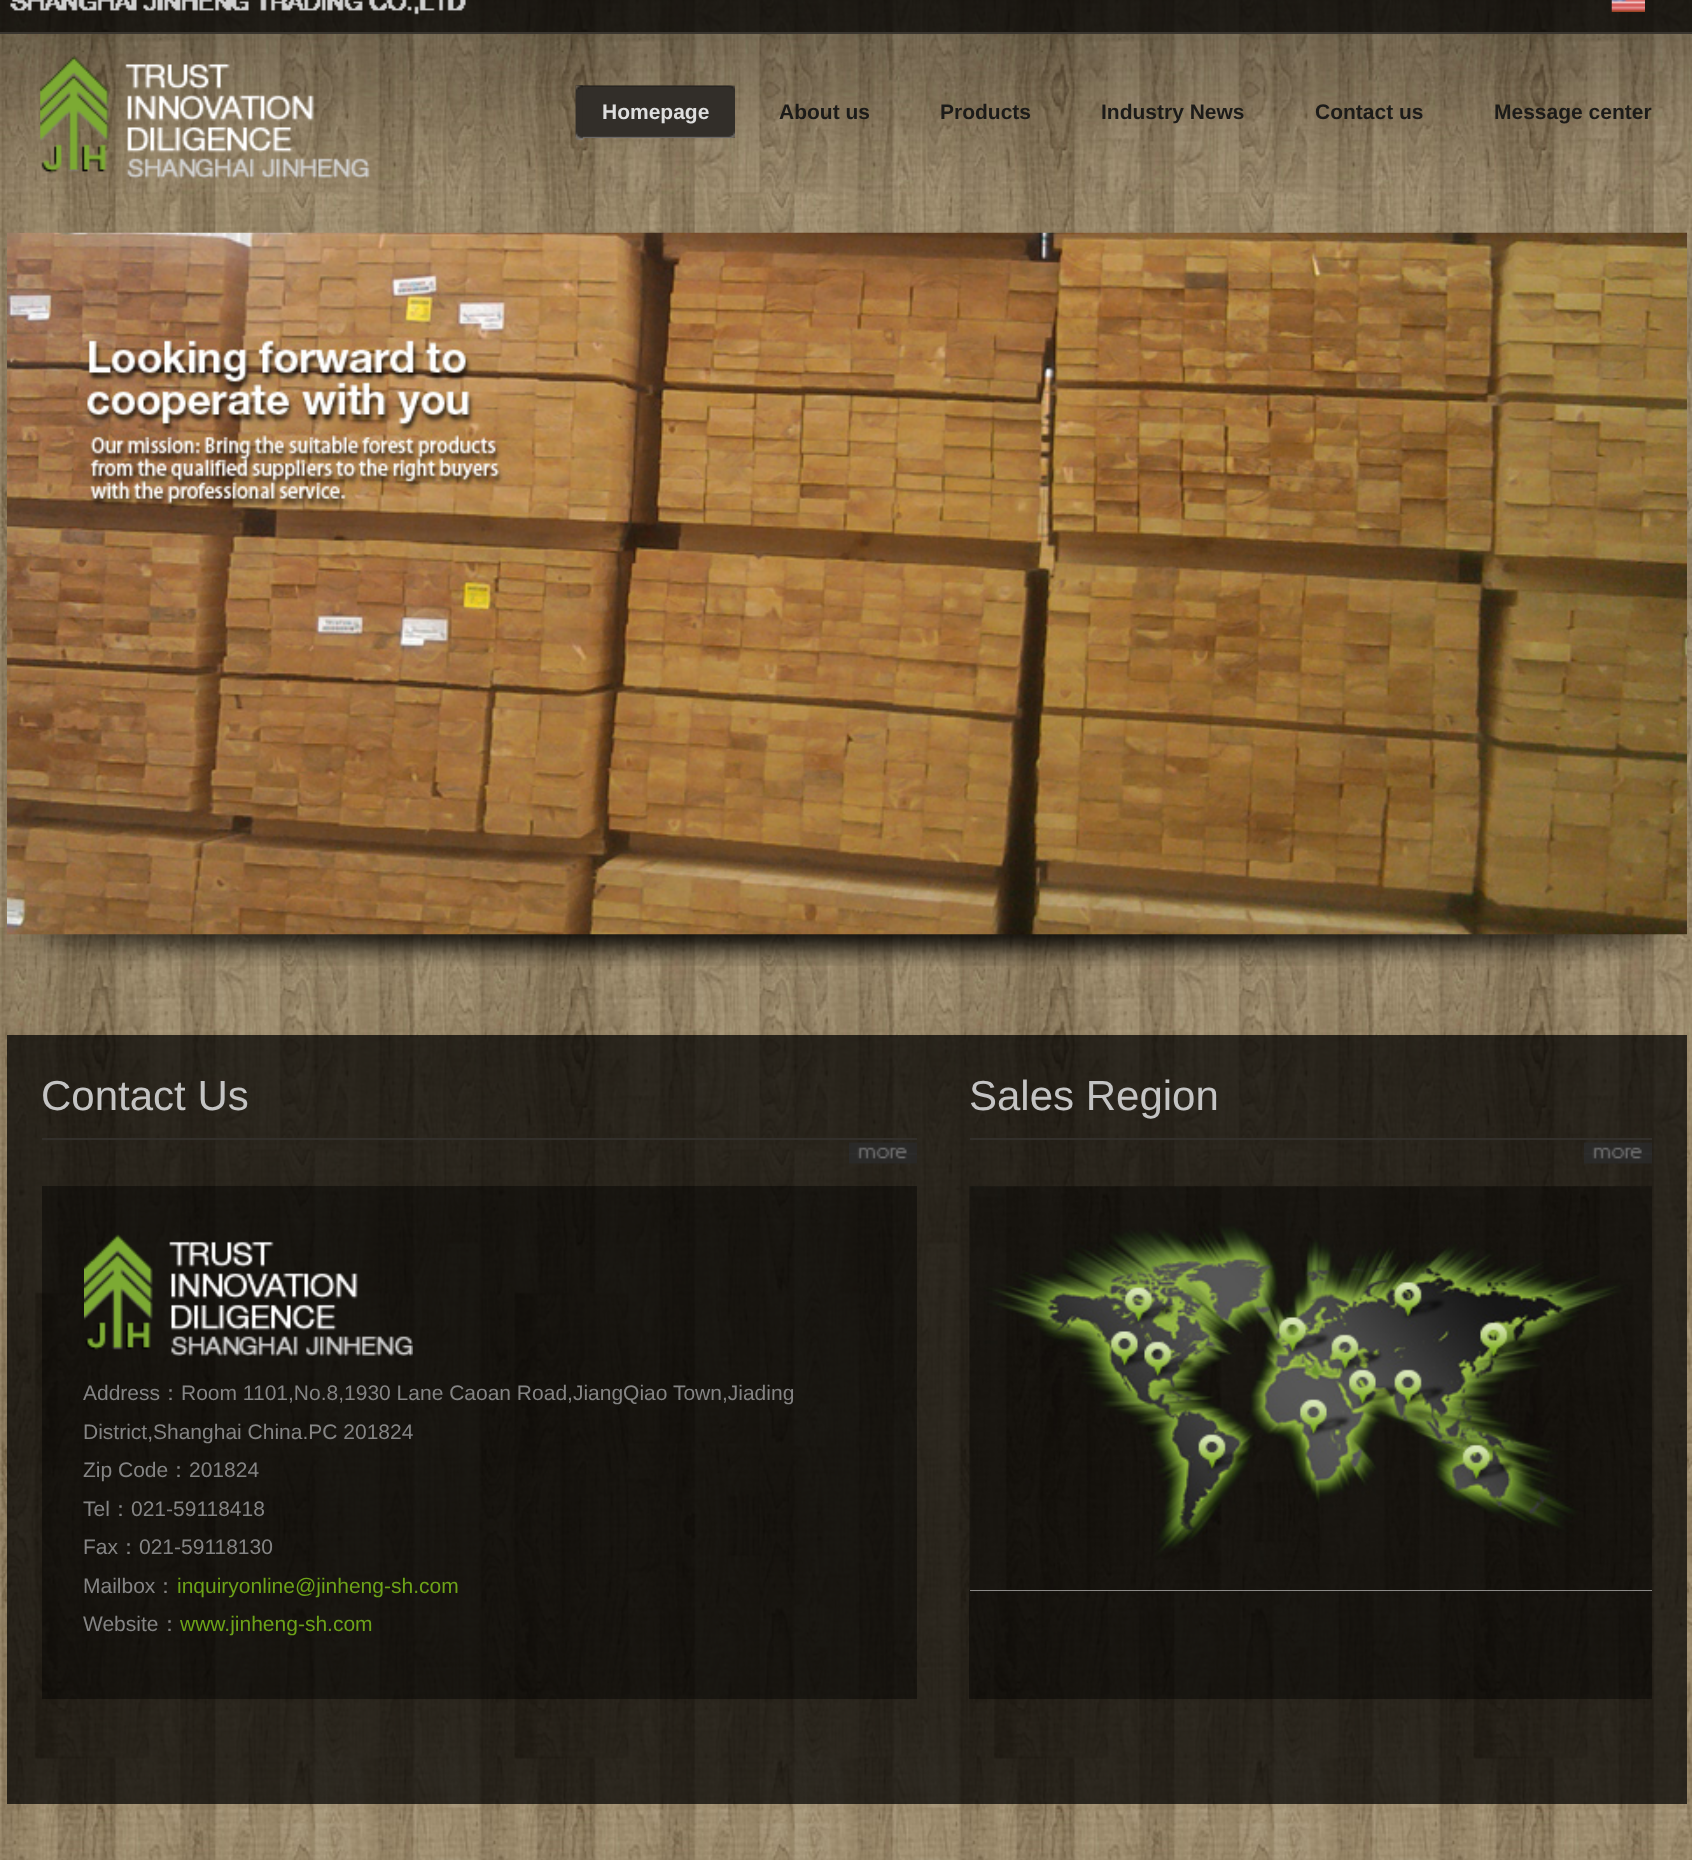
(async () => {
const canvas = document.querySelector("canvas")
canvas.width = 1692
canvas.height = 1860
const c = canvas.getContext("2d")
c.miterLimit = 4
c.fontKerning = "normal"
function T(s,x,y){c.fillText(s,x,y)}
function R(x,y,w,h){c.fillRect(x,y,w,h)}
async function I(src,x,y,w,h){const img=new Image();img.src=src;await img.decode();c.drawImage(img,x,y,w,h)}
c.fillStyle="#fff"
R(0,0,1692,1860)
await I("1.png",0,927,1692,933)
await I("2.png",0,0,1692,928)
c.fillStyle="#000000ba"
R(0,0,1692,32)
c.fillStyle="#39352f"
R(0,32,1692,2)
await I("3.png",10,0,456,15)
await I("4.png",1611,0,34,12)
await I("5.png",40,55,330,124)
await I("6.png",575,85,160,53)
await I("7.png",575,85,8,55)
c.font="bold 21px Liberation Sans"
c.fillStyle="#dedede"
T("Homepage",602,119)
c.fillStyle="#1c1b19"
T("About us",779,119)
T("Products",940,119)
T("Industry News",1101,119)
T("Contact us",1315,119)
T("Message center",1494,119)
await I("8.png",20,934,1655,32)
await I("9.png",7,232,1680,703)
c.fillStyle="#000000ba"
R(7,1035,1680,769)
c.fillStyle="#322f2b"
R(42,1138,875,2)
c.font="42px Liberation Sans"
c.fillStyle="#c4c4c4"
T("Contact Us",41,1110)
await I("10.png",849,1142,68,22)
c.fillStyle="#00000069"
R(42,1186,875,513)
await I("11.png",84,1234,329,122)
c.font="21px Liberation Sans"
c.fillStyle="#848484"
T("Address",83,1400)
c.font="500 21px WenQuanYi Zen Hei"
T("：",160,1400)
c.font="21px Liberation Sans"
T("Room 1101,No.8,1930 Lane Caoan Road,JiangQiao Town,Jiading",181,1400)
T("District,Shanghai China.PC 201824",83,1439)
T("Zip Code",83,1477)
c.font="500 21px WenQuanYi Zen Hei"
T("：",168,1477)
c.font="21px Liberation Sans"
T("201824",189,1477)
T("Tel",83,1516)
c.font="500 21px WenQuanYi Zen Hei"
T("：",110,1516)
c.font="21px Liberation Sans"
T("021-59118418",131,1516)
T("Fax",83,1554)
c.font="500 21px WenQuanYi Zen Hei"
T("：",118,1554)
c.font="21px Liberation Sans"
T("021-59118130",139,1554)
T("Mailbox",83,1593)
c.font="500 21px WenQuanYi Zen Hei"
T("：",155,1593)
c.font="21px Liberation Sans"
c.fillStyle="#6da318"
T("inquiryonline@jinheng-sh.com",177,1593)
c.fillStyle="#848484"
T("Website",83,1631)
c.font="500 21px WenQuanYi Zen Hei"
T("：",159,1631)
c.font="21px Liberation Sans"
c.fillStyle="#6da318"
T("www.jinheng-sh.com",180,1631)
c.fillStyle="#322f2b"
R(970,1138,682,2)
c.font="42px Liberation Sans"
c.fillStyle="#c4c4c4"
T("Sales Region",969,1110)
await I("12.png",1584,1142,68,22)
c.fillStyle="#00000069"
R(969,1590,683,109)
c.fillStyle="#fff"
R(970,1590,682,1)
await I("13.png",969,1186,683,405)
})()
